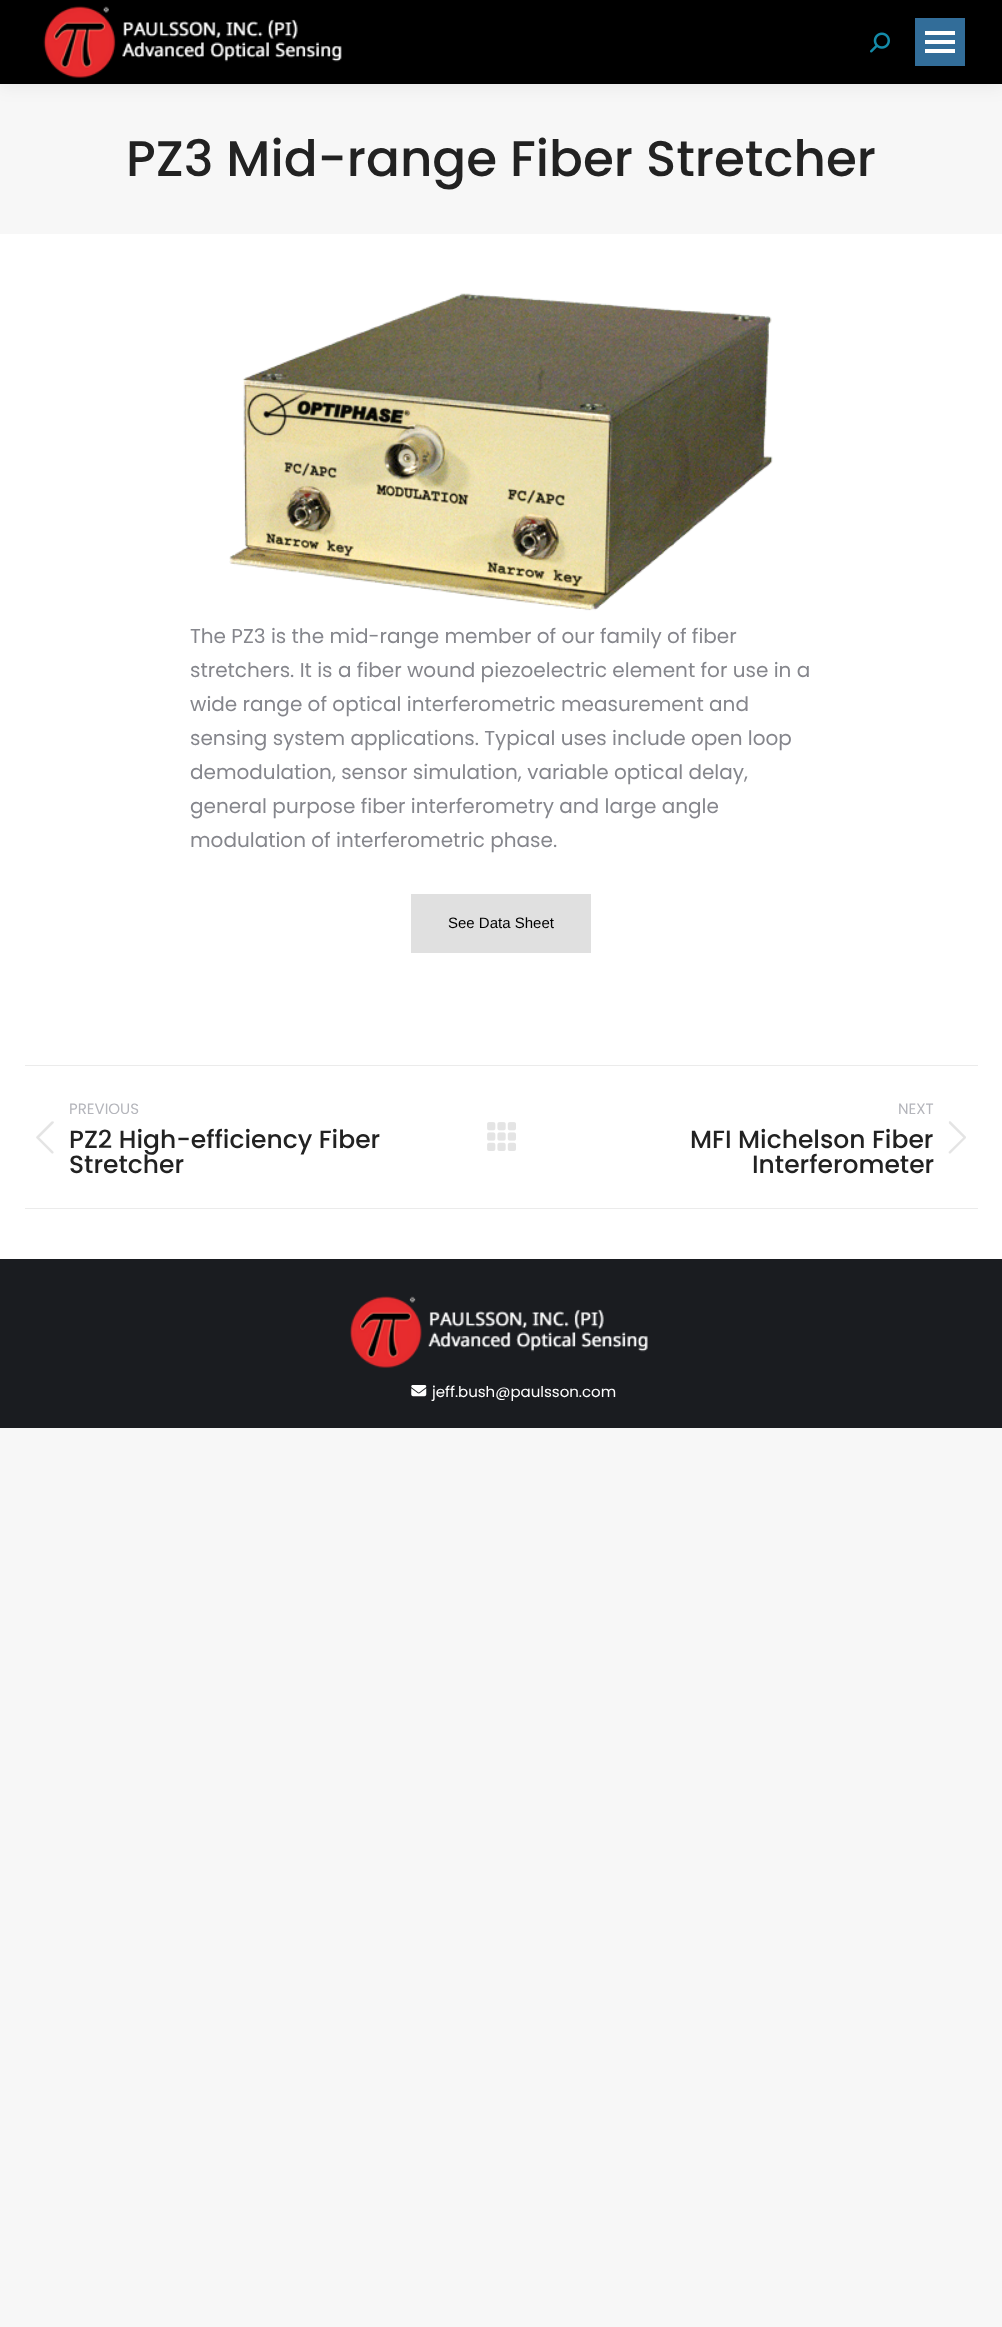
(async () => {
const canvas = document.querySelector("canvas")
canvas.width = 1002
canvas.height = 2327
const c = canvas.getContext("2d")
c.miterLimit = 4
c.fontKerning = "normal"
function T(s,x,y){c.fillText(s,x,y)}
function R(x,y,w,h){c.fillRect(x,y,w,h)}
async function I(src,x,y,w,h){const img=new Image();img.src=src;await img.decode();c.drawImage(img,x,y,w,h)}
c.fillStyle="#f7f7f7"
R(0,0,1002,2327)
c.fillStyle="#fff"
R(0,234,1002,1025)
c.fillStyle="#00000012"
c.filter="blur(9.5px)"
c.beginPath()
c.rect(-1,-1,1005,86)
c.fill()
c.filter="none"
c.fillStyle="#000"
R(0,0,1002,84)
await I("1.png",43,6,299,72)
await I("2.png",870,32,20,21)
c.fillStyle="#326d99"
R(915,18,50,48)
c.fillStyle="#fff"
R(925,31,30,4)
R(925,40,30,4)
R(925,49,30,4)
c.font="500 50px Poppins"
c.fillStyle="#222"
T("PZ3 Mid-range Fiber Stretcher",126,176)
await I("3.png",229,293,544,318)
c.font="20px Poppins"
c.fillStyle="#85868c"
T("The PZ3 is the mid-range member of our family of fiber",190,643)
T("stretchers. It is a fiber wound piezoelectric element for use in a",190,677)
T("wide range of optical interferometric measurement and",190,711)
T("sensing system applications. Typical uses include open loop",190,745)
T("demodulation, sensor simulation, variable optical delay,",190,779)
T("general purpose fiber interferometry and large angle",190,813)
T("modulation of interferometric phase.",190,847)
c.fillStyle="#e0e0e0"
R(411,894,180,59)
c.font="15px Liberation Sans"
c.fillStyle="#000"
T("See Data Sheet",448,928)
c.fillStyle="#ebebeb"
R(25,1065,953,1)
R(25,1208,953,1)
c.font="15px Poppins"
c.fillStyle="#b4b5bb"
T("PREVIOUS",69,1114)
await I("4.png",36,1121,18,33)
c.font="500 25px Poppins"
c.fillStyle="#222"
T("PZ2 High-efficiency Fiber",69,1148)
T("Stretcher",69,1173)
await I("5.png",487,1122,29,29)
c.font="15px Poppins"
c.fillStyle="#b4b5bb"
T("NEXT",898,1114)
c.font="500 25px Poppins"
c.fillStyle="#222"
T("MFI Michelson Fiber",690,1148)
T("Interferometer",752,1173)
await I("6.png",948,1121,18,33)
c.fillStyle="#1a1c20"
R(0,1259,1002,169)
await I("7.png",350,1296,298,72)
await I("8.png",411,1385,16,12)
c.font="15px Poppins"
c.fillStyle="#fff"
T("jeff.bush@paulsson.com",432,1397)
})()
